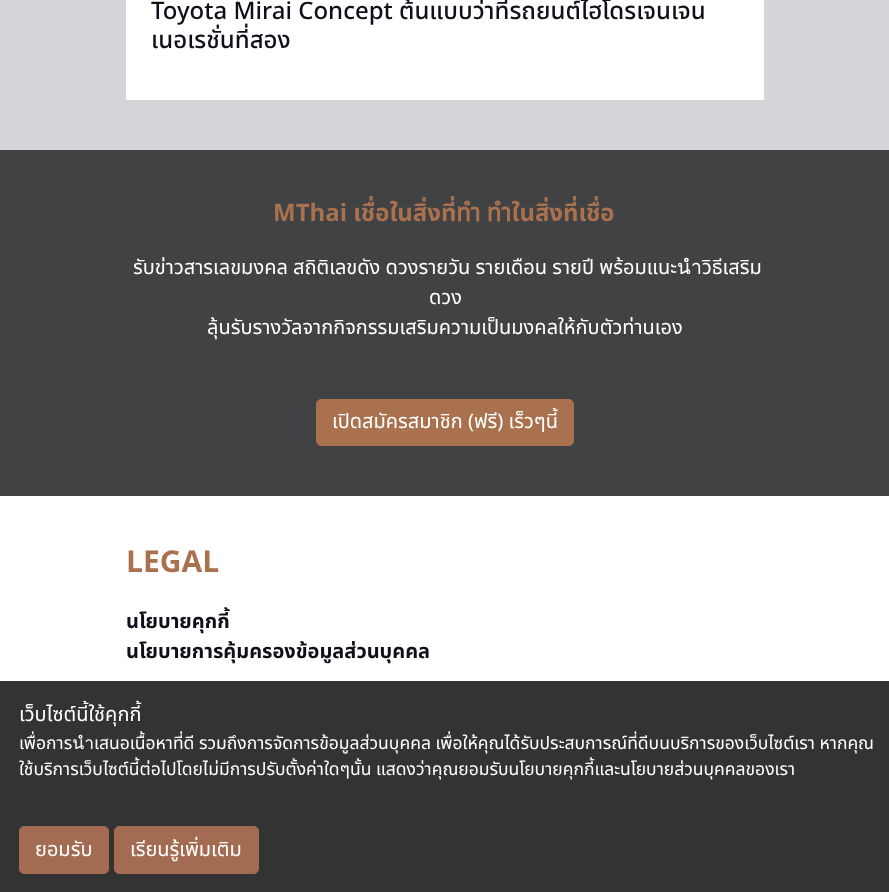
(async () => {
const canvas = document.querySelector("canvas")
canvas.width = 889
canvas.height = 892
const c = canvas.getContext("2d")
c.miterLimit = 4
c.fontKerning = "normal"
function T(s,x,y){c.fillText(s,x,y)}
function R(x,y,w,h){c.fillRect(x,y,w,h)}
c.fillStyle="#fff"
R(0,0,889,892)
c.fillStyle="#d5d5d9"
R(0,0,889,150)
c.fillStyle="#fff"
R(126,0,638,100)
c.font="500 24px Noto Sans Thai"
c.fillStyle="#11101a"
T("Toyota Mirai Concept ต้นแบบว่าที่รถยนต์ไฮโดรเจนเจน",151,19)
T("เนอเรชั่นที่สอง",151,48)
c.fillStyle="#404244"
R(0,150,889,346)
c.font="bold 24px Noto Sans Thai"
c.fillStyle="#aa714f"
T("MThai เชื่อในสิ่งที่ทำ ทำในสิ่งที่เชื่อ",273,221)
c.font="20px Noto Sans Thai"
c.fillStyle="#fff"
T("รับข่าวสารเลขมงคล สถิติเลขดัง ดวงรายวัน รายเดือน รายปี พร้อมแนะนำวิธีเสริม",133,274)
T("ดวง",429,304)
T("ลุ้นรับรางวัลจากกิจกรรมเสริมความเป็นมงคลให้กับตัวท่านเอง",207,334)
c.fillStyle="#aa714f"
c.beginPath()
c.roundRect(316.5,399.5,257,46,4.5)
c.fill()
c.strokeStyle="#aa714f"
c.stroke()
c.fillStyle="#fff"
T("เปิดสมัครสมาชิก (ฟรี) เร็วๆนี้",332,428)
c.font="bold 30px Noto Sans Thai"
c.fillStyle="#aa714f"
T("LEGAL",126,572)
c.font="bold 20px Noto Sans Thai"
c.fillStyle="#11101a"
T("นโยบายคุกกี้",126,628)
T("นโยบายการคุ้มครองข้อมูลส่วนบุคคล",126,658)
c.fillStyle="#000000cc"
R(0,681,889,211)
c.font="20px Noto Sans Thai"
c.fillStyle="#fff"
T("เว็บไซต์นี้ใช้คุกกี้",19,721)
c.font="17.5px Noto Sans Thai"
T("เพื่อการนำเสนอเนื้อหาที่ดี รวมถึงการจัดการข้อมูลส่วนบุคคล เพื่อให้คุณได้รับประสบการณ์ที่ดีบนบริการของเว็บไซต์เรา หากคุณ",19,749)
T("ใช้บริการเว็บไซต์นี้ต่อไปโดยไม่มีการปรับตั้งค่าใดๆนั้น แสดงว่าคุณยอมรับนโยบายคุกกี้และนโยบายส่วนบุคคลของเรา",19,775)
c.fillStyle="#a36b52"
c.beginPath()
c.roundRect(19.5,826.5,89,47,4.5)
c.fill()
c.strokeStyle="#a36b52"
c.stroke()
c.font="20px Noto Sans Thai"
c.fillStyle="#fff"
T("ยอมรับ",35,856)
c.fillStyle="#a36b52"
c.beginPath()
c.roundRect(114.5,826.5,144,47,4.5)
c.fill()
c.stroke()
c.fillStyle="#fff"
T("เรียนรู้เพิ่มเติม",130,856)
})()
